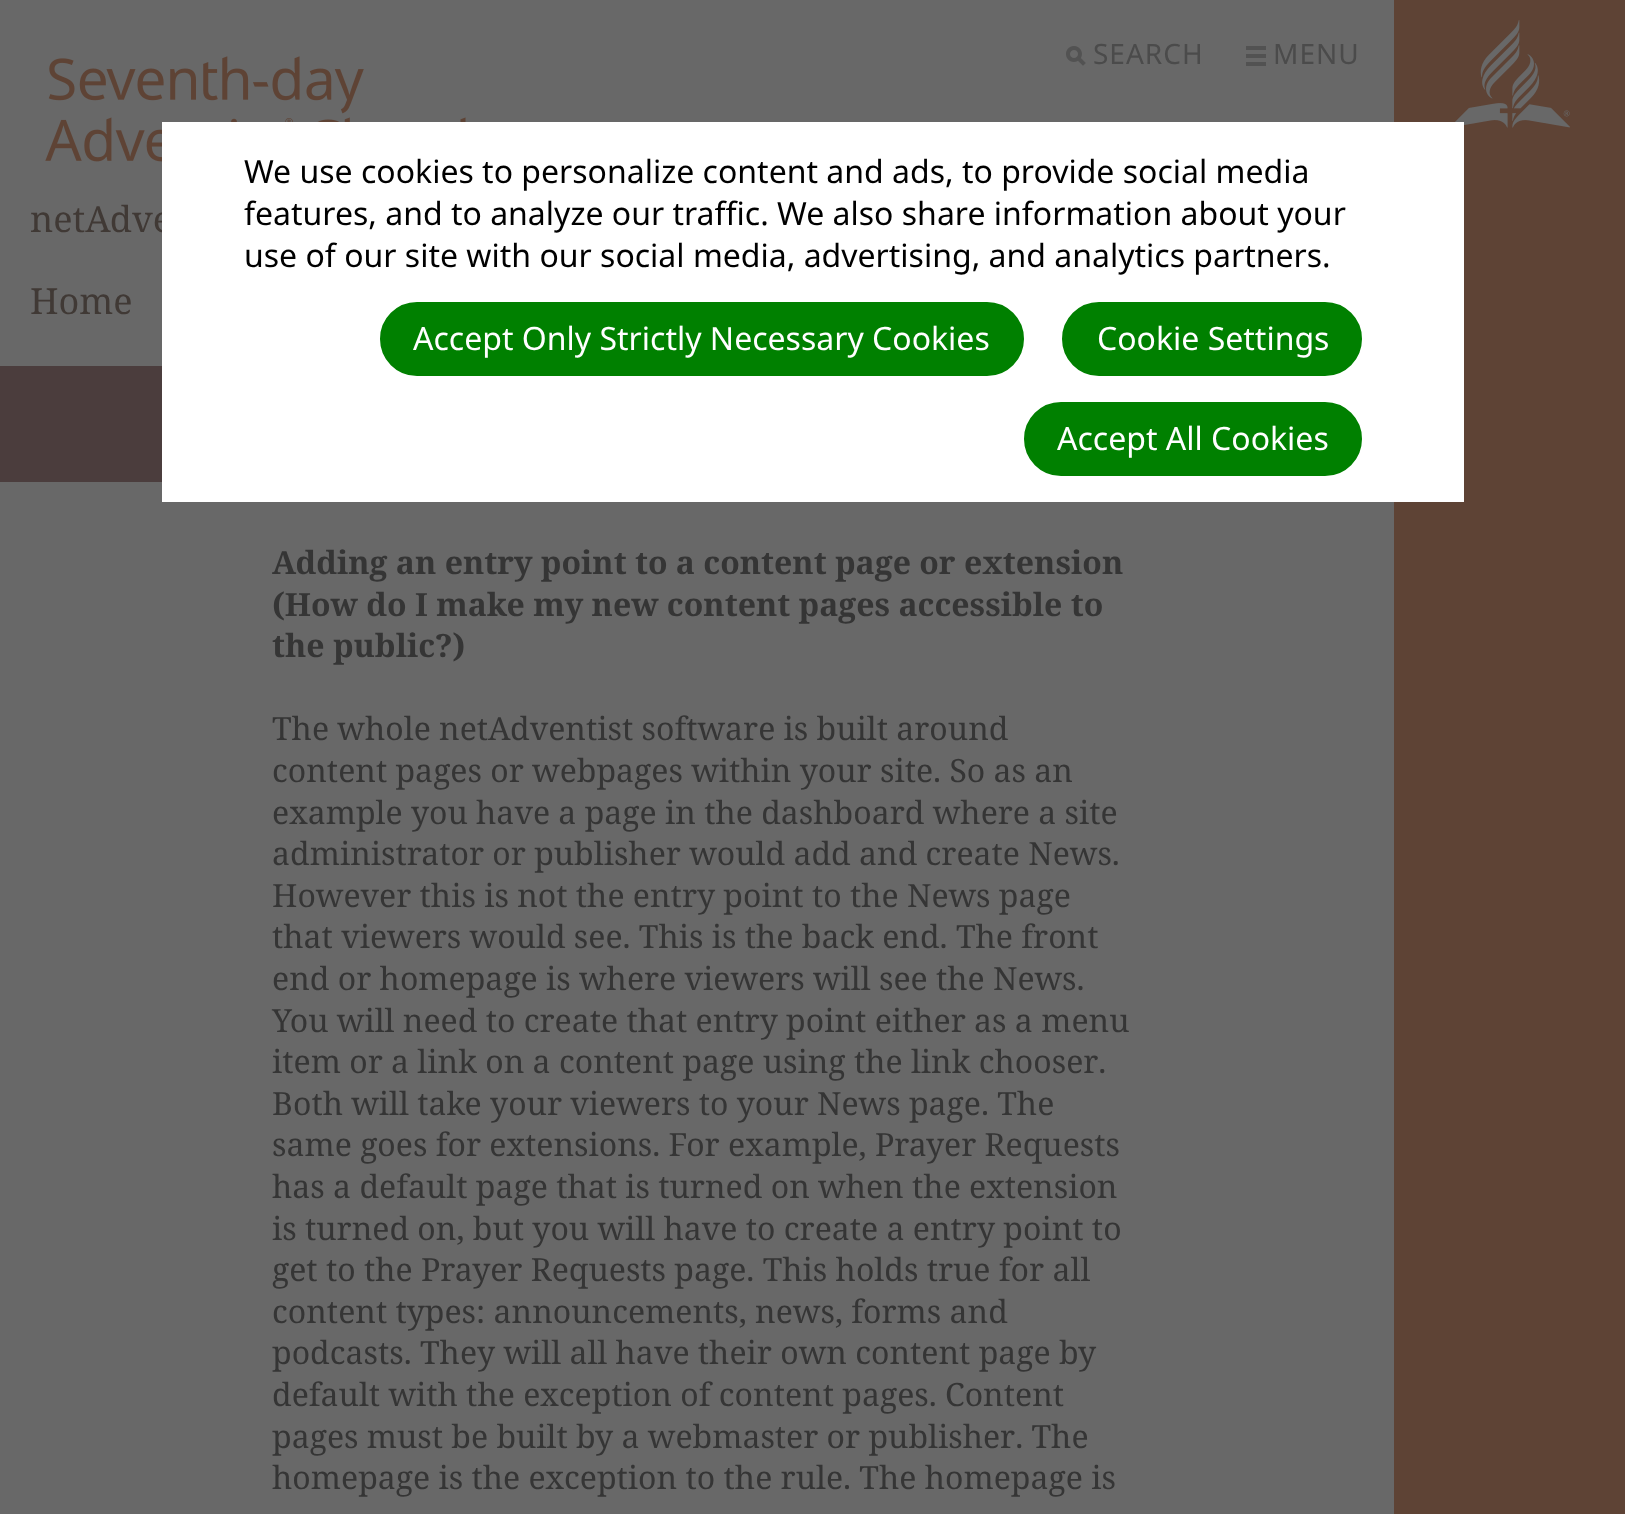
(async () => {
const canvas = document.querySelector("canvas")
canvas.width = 1625
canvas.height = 1514
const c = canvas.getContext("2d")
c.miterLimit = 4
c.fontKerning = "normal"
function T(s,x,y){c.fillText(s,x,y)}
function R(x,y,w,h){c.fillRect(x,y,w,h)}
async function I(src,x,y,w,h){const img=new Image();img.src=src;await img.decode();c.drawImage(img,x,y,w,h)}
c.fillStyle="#686868"
R(0,0,1625,1514)
await I("1.png",1066,46,20,20)
c.letterSpacing="1px"
c.font="28px Noto Sans"
c.fillStyle="#4b4b4b"
T("SEARCH",1093,64)
await I("2.png",1246,46,20,20)
T("MENU",1273,64)
await I("3.png",45,56,421,106)
c.letterSpacing="0px"
c.font="36px Noto Serif"
c.fillStyle="#403935"
T("netAdve",30,232)
T("Home",30,314)
c.fillStyle="#4b3d3d"
R(0,366,162,116)
c.font="bold 32px Noto Serif"
c.fillStyle="#353535"
T("Adding an entry point to a content page or extension",272,574)
T("(How do I make my new content pages accessible to",272,616)
T("the public?)",272,657)
c.font="32px Noto Serif"
T("The whole netAdventist software is built around",272,740)
T("content pages or webpages within your site. So as an",272,782)
T("example you have a page in the dashboard where a site",272,824)
T("administrator or publisher would add and create News.",272,865)
T("However this is not the entry point to the News page",272,907)
T("that viewers would see. This is the back end. The front",272,948)
T("end or homepage is where viewers will see the News.",272,990)
T("You will need to create that entry point either as a menu",272,1032)
T("item or a link on a content page using the link chooser.",272,1073)
T("Both will take your viewers to your News page. The",272,1115)
T("same goes for extensions. For example, Prayer Requests",272,1156)
T("has a default page that is turned on when the extension",272,1198)
T("is turned on, but you will have to create a entry point to",272,1240)
T("get to the Prayer Requests page. This holds true for all",272,1281)
T("content types: announcements, news, forms and",272,1323)
T("podcasts. They will all have their own content page by",272,1364)
T("default with the exception of content pages. Content",272,1406)
T("pages must be built by a webmaster or publisher. The",272,1448)
T("homepage is the exception to the rule. The homepage is",272,1489)
c.fillStyle="#5e4335"
R(1394,0,231,1514)
await I("4.png",1455,20,115,108)
c.fillStyle="#fff"
R(162,122,1302,380)
c.font="32px Noto Sans"
c.fillStyle="#000"
T("We use cookies to personalize content and ads, to provide social media",244,183)
T("features, and to analyze our traffic. We also share information about your",244,225)
T("use of our site with our social media, advertising, and analytics partners.",244,267)
c.fillStyle="#008000"
c.beginPath()
c.roundRect(381,303,642,72,36)
c.fill()
c.strokeStyle="#008000"
c.lineWidth=2
c.stroke()
c.fillStyle="#fff"
T("Accept Only Strictly Necessary Cookies",413,350)
c.fillStyle="#008000"
c.beginPath()
c.roundRect(1063,303,298,72,36)
c.fill()
c.stroke()
c.fillStyle="#fff"
T("Cookie Settings",1097,350)
c.fillStyle="#008000"
c.beginPath()
c.roundRect(1025,403,336,72,36)
c.fill()
c.stroke()
c.fillStyle="#fff"
T("Accept All Cookies",1057,450)
})()
